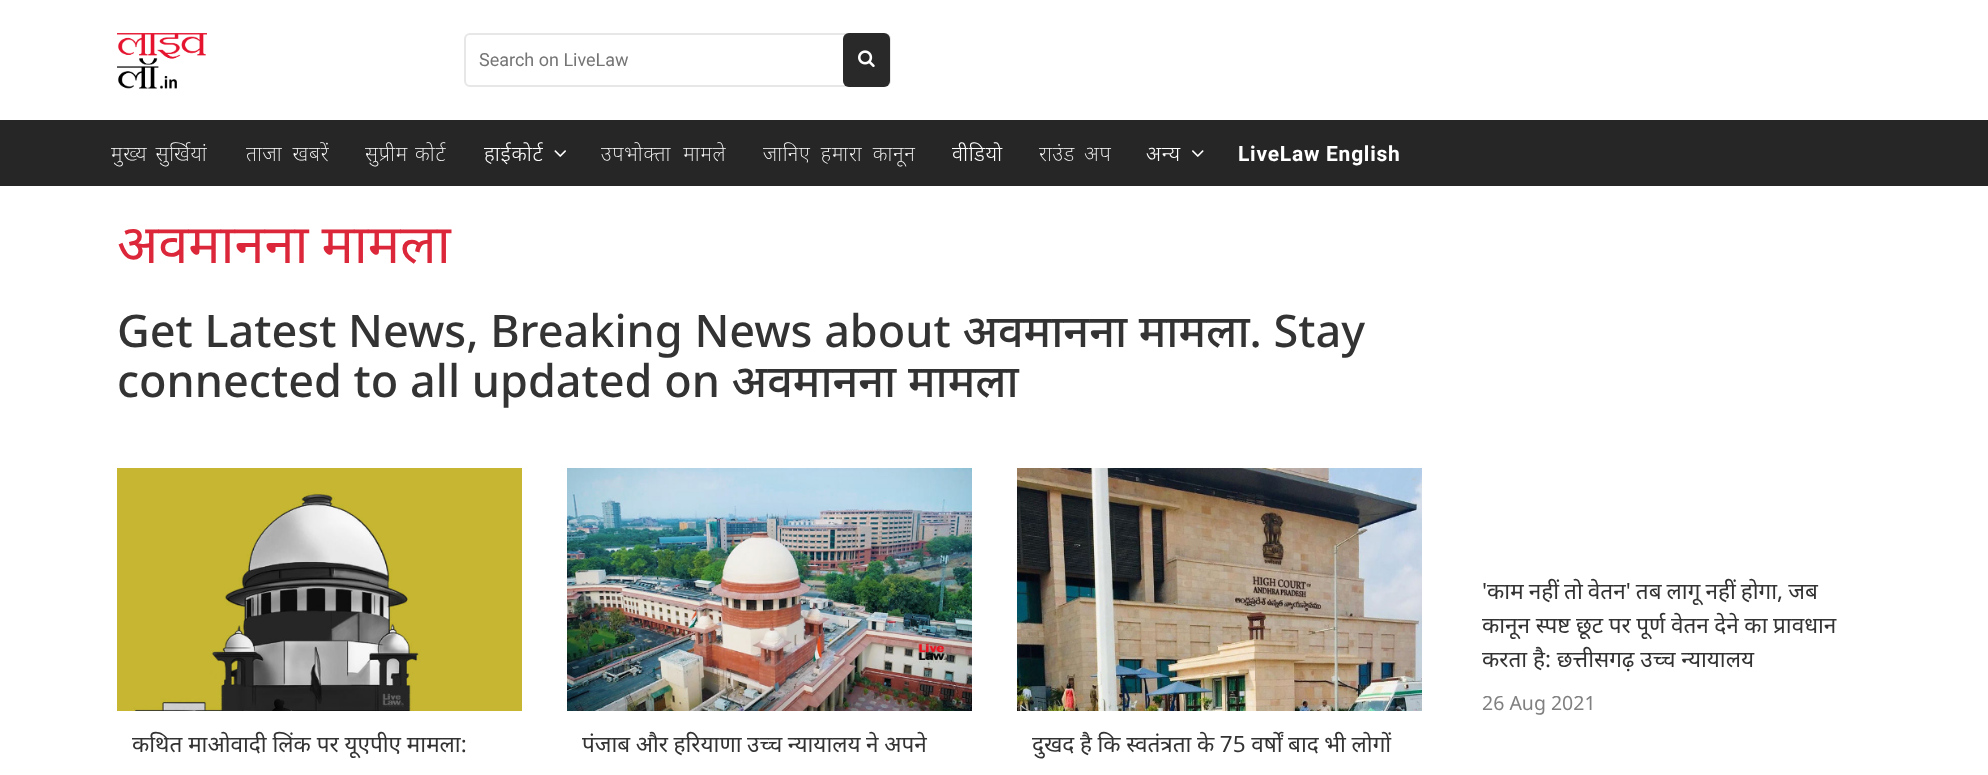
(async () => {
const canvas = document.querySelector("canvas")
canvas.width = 1988
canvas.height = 775
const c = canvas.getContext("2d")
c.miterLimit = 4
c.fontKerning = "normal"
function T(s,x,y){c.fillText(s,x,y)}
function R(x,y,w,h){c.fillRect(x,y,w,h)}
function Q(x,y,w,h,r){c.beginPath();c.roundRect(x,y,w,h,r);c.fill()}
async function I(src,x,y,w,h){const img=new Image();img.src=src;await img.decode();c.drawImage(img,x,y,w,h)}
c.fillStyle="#fff"
R(0,0,1988,775)
await I("1.png",117,33,90,56)
c.beginPath()
c.roundRect(465,34,425,52,5)
c.strokeStyle="#e7e7e7"
c.lineWidth=2
c.stroke()
c.font="18px Roboto"
c.fillStyle="#757575"
T("Search on LiveLaw",479,66)
c.fillStyle="#292929"
Q(843,33,47,54,6)
await I("2.png",858,50,17,18)
c.fillStyle="#262626"
R(0,120,1988,66)
c.letterSpacing="0.75px"
c.wordSpacing="2px"
c.font="200 21px Noto Sans"
c.fillStyle="#fff"
T("मुख्य सुर्खियां",111,161)
c.wordSpacing="4px"
T("ताजा खबरें",246,161)
c.wordSpacing="1px"
T("सुप्रीम कोर्ट",365,161)
c.wordSpacing="0px"
c.font="300 21px Noto Sans"
T("हाईकोर्ट",484,161)
await I("3.png",554,150,12,7)
c.wordSpacing="6px"
c.font="200 21px Noto Sans"
T("उपभोक्ता मामले",601,161)
c.wordSpacing="4px"
T("जानिए हमारा कानून",763,161)
c.wordSpacing="0px"
c.font="300 21px Noto Sans"
T("वीडियो",952,161)
c.wordSpacing="3px"
c.font="200 21px Noto Sans"
T("राउंड अप",1039,161)
c.wordSpacing="0px"
c.font="300 21px Noto Sans"
T("अन्य",1146,161)
await I("4.png",1192,150,12,7)
c.font="bold 21px Roboto"
T("LiveLaw English",1238,161)
c.letterSpacing="0px"
c.wordSpacing="-1px"
c.font="54px Noto Sans"
c.fillStyle="#dc2639"
T("अवमानना मामला",117,263)
c.wordSpacing="0px"
c.font="500 45px Noto Sans"
c.fillStyle="#333"
T("Get Latest News, Breaking News about अवमानना मामला. Stay",117,347)
T("connected to all updated on अवमानना मामला",117,397)
c.wordSpacing="-0.75px"
c.font="22.5px Noto Sans"
T("'काम नहीं तो वेतन' तब लागू नहीं होगा, जब",1482,599)
c.wordSpacing="-0.25px"
T("कानून स्पष्ट छूट पर पूर्ण वेतन देने का प्रावधान",1482,633)
c.wordSpacing="0px"
T("करता है: छत्तीसगढ़ उच्च न्यायालय",1482,667)
c.font="19.5px Noto Sans"
c.fillStyle="#808080"
T("26 Aug 2021",1482,710)
await I("5.png",117,468,405,243)
c.font="22.5px Noto Sans"
c.fillStyle="#333"
T("कथित माओवादी लिंक पर यूएपीए मामला:",132,752)
await I("6.png",567,468,405,243)
c.wordSpacing="-0.25px"
T("पंजाब और हरियाणा उच्च न्यायालय ने अपने",582,752)
await I("7.png",1017,468,405,243)
T("दुखद है कि स्वतंत्रता के 75 वर्षों बाद भी लोगों",1032,752)
})()
